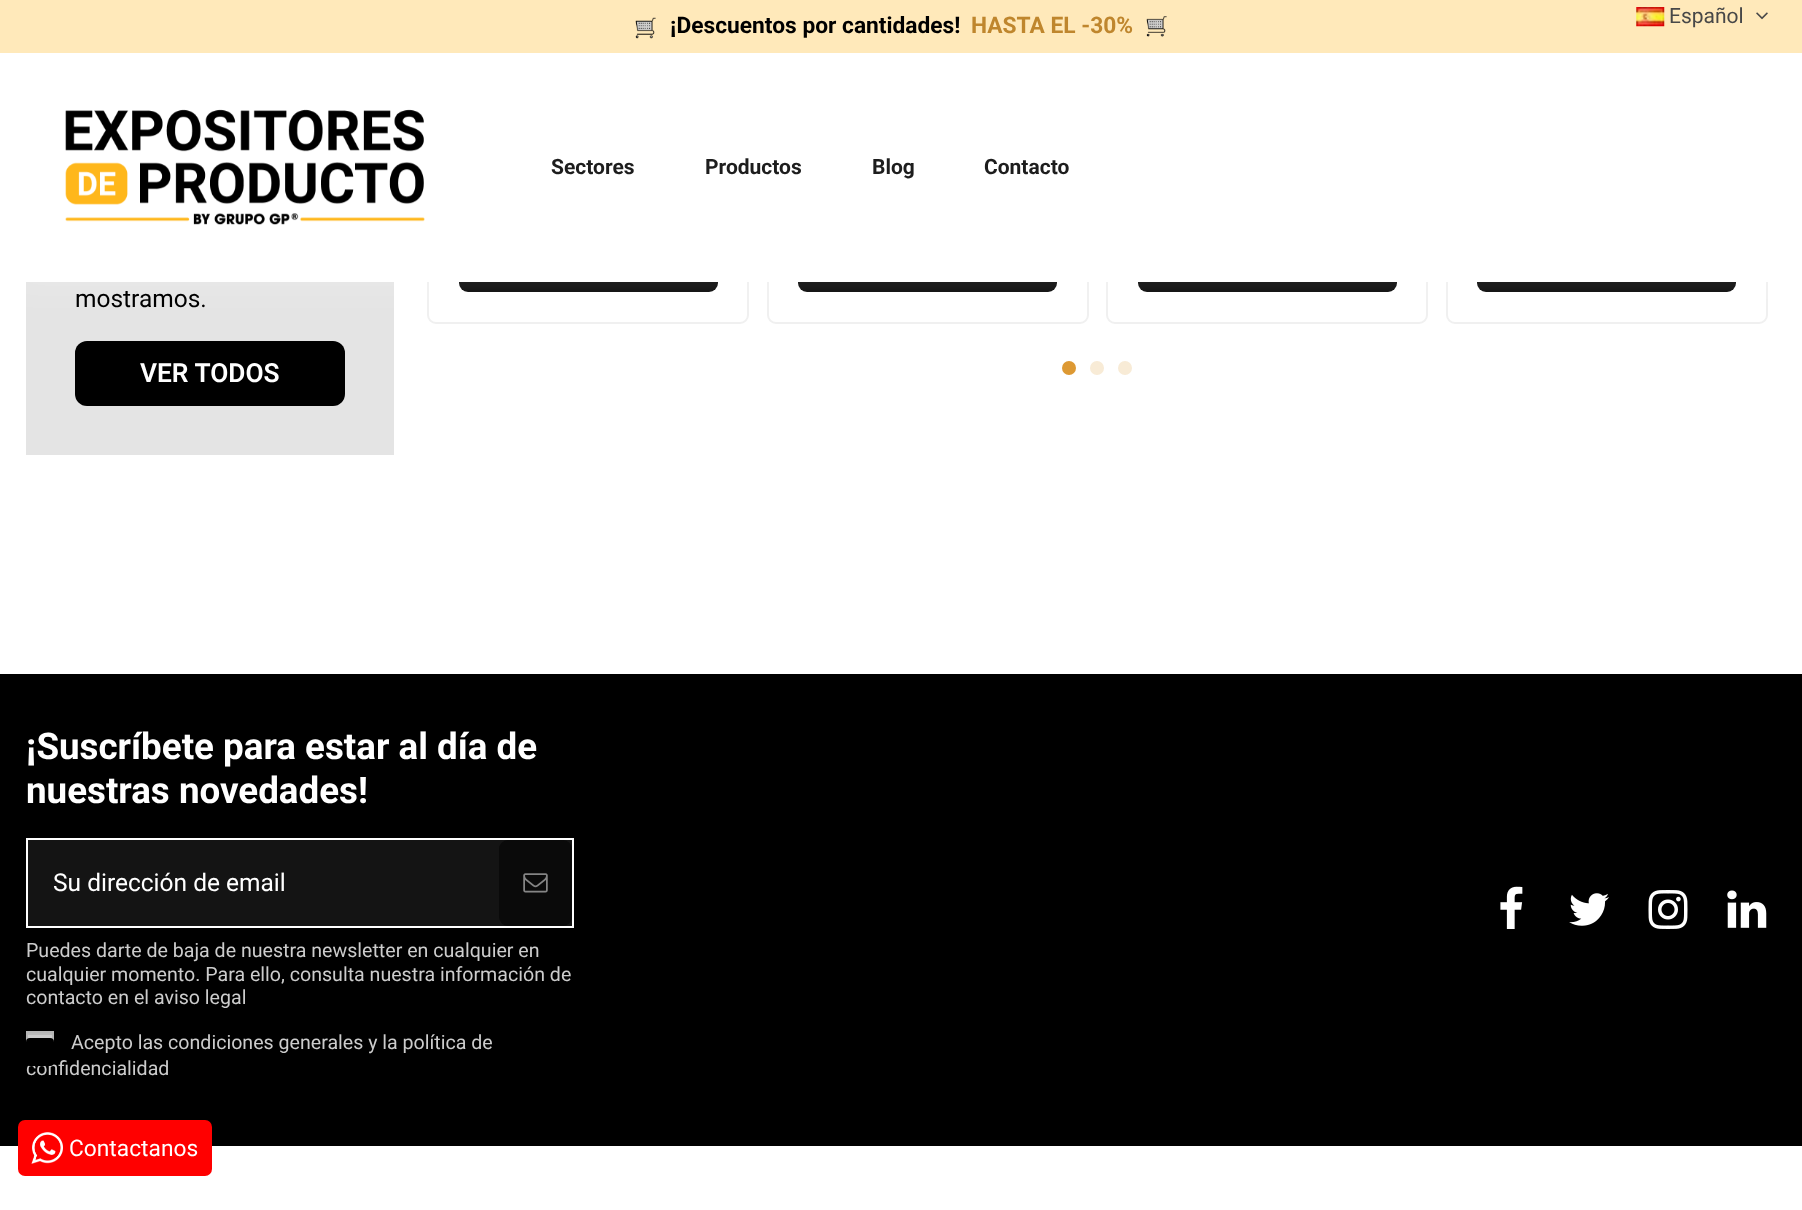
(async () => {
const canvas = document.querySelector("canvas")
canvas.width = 1802
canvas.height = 1210
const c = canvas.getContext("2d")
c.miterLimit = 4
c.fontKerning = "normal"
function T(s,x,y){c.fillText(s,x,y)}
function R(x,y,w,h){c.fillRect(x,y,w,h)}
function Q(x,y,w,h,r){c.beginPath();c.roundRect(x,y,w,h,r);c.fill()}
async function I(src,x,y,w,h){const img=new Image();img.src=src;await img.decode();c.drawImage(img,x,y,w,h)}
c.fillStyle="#fff"
R(0,0,1802,1210)
c.fillStyle="#e4e4e4"
R(26,282,368,173)
c.fillStyle="#000"
Q(75,341,270,65,12)
c.beginPath()
c.roundRect(428,-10,320,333,8)
c.strokeStyle="#f0f0f0"
c.lineWidth=2
c.stroke()
Q(459,231,259,61,9)
c.beginPath()
c.roundRect(768,-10,320,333,8)
c.stroke()
Q(798,231,259,61,9)
c.beginPath()
c.roundRect(1107,-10,320,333,8)
c.stroke()
Q(1138,231,259,61,9)
c.beginPath()
c.roundRect(1447,-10,320,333,8)
c.stroke()
Q(1477,231,259,61,9)
c.fillStyle="#ffffff2e"
c.filter="blur(22px)"
c.beginPath()
c.rect(0,61,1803,230)
c.fill()
c.filter="none"
c.fillStyle="#ffe9ba"
R(0,0,1802,53)
await I("1.png",635,17,21,22)
c.font="bold 22.75px Roboto"
c.fillStyle="#000"
T("¡Descuentos por cantidades!",670,33)
c.fillStyle="#bf862d"
T("HASTA EL -30%",971,33)
await I("2.png",1146,16,21,21)
await I("3.png",1636,7,29,20)
c.font="21px Roboto"
c.fillStyle="#484848"
T("Español",1669,23)
await I("4.png",1756,12,12,8)
c.fillStyle="#fff"
R(427,53,1341,229)
await I("5.png",65,109,360,116)
c.font="bold 21px Roboto"
c.fillStyle="#1d1d1d"
T("Sectores",551,174)
T("Productos",705,174)
T("Blog",872,174)
T("Contacto",984,174)
c.font="24.5px Roboto"
c.fillStyle="#000"
T("mostramos.",75,307)
c.font="600 26.25px Roboto"
c.fillStyle="#fff"
T("VER TODOS",140,382)
c.fillStyle="#d93"
c.beginPath()
c.arc(1069,368,7,0,7)
c.fill()
c.fillStyle="#f8ebd6"
c.beginPath()
c.arc(1097,368,7,0,7)
c.fill()
c.beginPath()
c.arc(1125,368,7,0,7)
c.fill()
c.fillStyle="#000"
R(0,674,1802,472)
c.font="bold 36.75px Roboto"
c.fillStyle="#fff"
T("¡Suscríbete para estar al día de",26,759)
T("nuestras novedades!",26,803)
c.fillStyle="#141414"
c.beginPath()
c.rect(27,839,546,88)
c.fill()
c.strokeStyle="#fff"
c.stroke()
c.font="24.5px Roboto"
c.fillStyle="#fff"
T("Su dirección de email",53,891)
c.fillStyle="#0a0a0a"
Q(499,840,73,86,9)
await I("6.png",523,873,25,20)
c.font="19.6px Roboto"
c.fillStyle="#ccc"
T("Puedes darte de baja de nuestra newsletter en cualquier en",26,957)
T("cualquier momento. Para ello, consulta nuestra información de",26,981)
T("contacto en el aviso legal",26,1004)
R(28,1035,24,4)
c.fillStyle="#bababa"
R(28,1033,25,2)
c.strokeStyle="#b6b6b6"
c.strokeRect(27,1032,26,26)
c.fillStyle="#ccc"
T("Acepto las condiciones generales y la política de",71,1049)
T("confidencialidad",26,1075)
c.fillStyle="#000"
c.beginPath()
c.roundRect(27,1039,26,26,3)
c.fill()
c.strokeStyle="#000"
c.stroke()
await I("7.png",1500,886,23,43)
await I("8.png",1569,893,40,33)
await I("9.png",1648,890,40,39)
await I("10.png",1727,890,40,38)
c.fillStyle="#f00"
Q(18,1120,194,56,7)
await I("11.png",31,1132,32,32)
c.font="22.75px Roboto"
c.fillStyle="#fff"
T("Contactanos",69,1156)
})()
